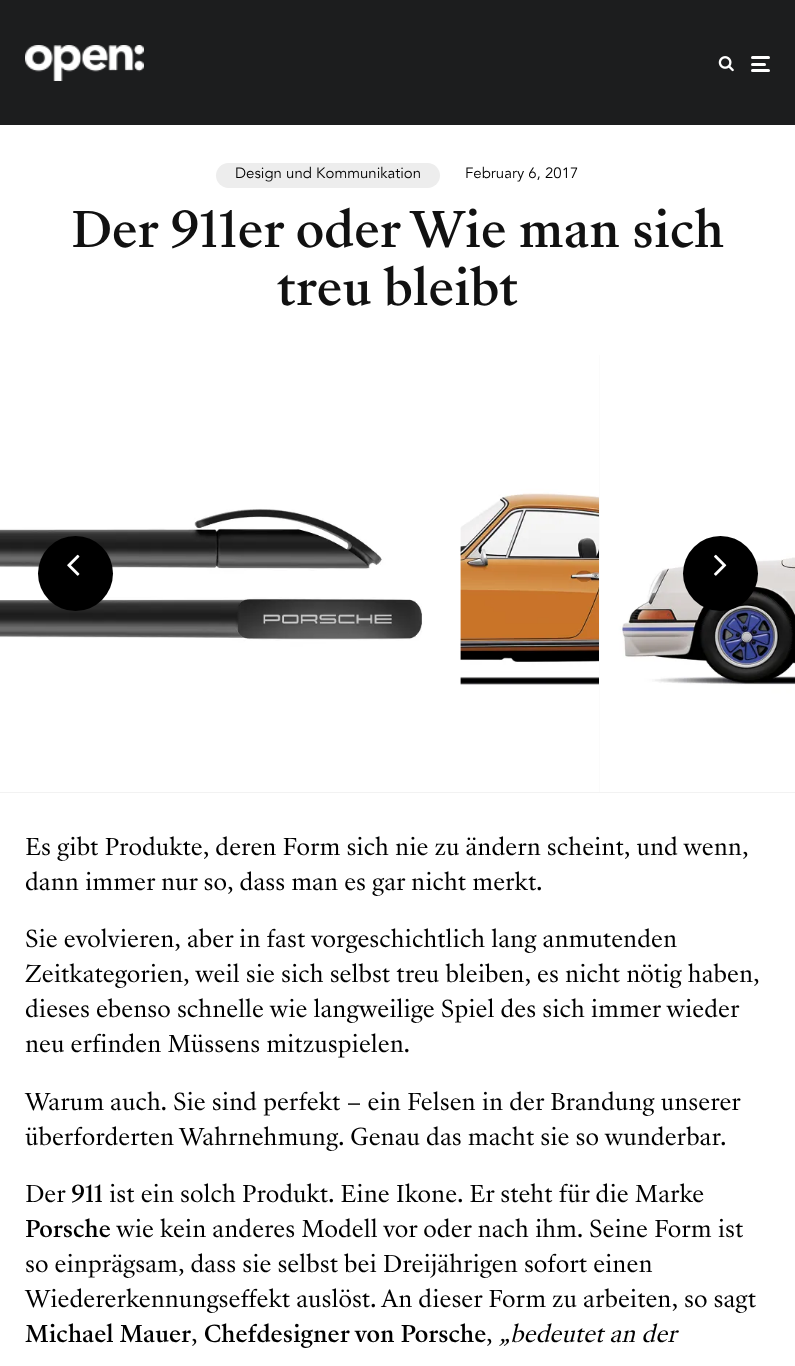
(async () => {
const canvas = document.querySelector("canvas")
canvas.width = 795
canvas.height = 1366
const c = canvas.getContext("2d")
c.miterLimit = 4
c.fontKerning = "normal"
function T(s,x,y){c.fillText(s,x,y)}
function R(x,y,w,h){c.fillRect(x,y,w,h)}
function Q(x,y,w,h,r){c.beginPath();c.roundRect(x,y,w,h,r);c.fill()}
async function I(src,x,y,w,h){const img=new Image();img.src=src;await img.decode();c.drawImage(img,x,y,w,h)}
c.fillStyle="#fff"
R(0,0,795,1366)
c.fillStyle="#1c1d1e"
R(0,0,795,125)
await I("1.png",25,45,119,36)
await I("2.png",718,56,16,16)
c.fillStyle="#fff"
Q(751,63,15,3,1.5)
Q(751,56,19,3,1.5)
Q(751,69,19,3,1.5)
c.fillStyle="#ededed"
Q(216,163,224,25,12.5)
c.font="300 15px 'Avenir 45'"
c.fillStyle="#000"
T("Design und Kommunikation",235,178)
T("February 6, 2017",465,178)
c.font="500 47.5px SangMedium"
c.fillStyle="#111"
T("Der 911er oder Wie man sich",71,247)
T("treu bleibt",277,305)
c.fillStyle="#f2f2f2"
R(0,792,599,1)
await I("3.png",460,355,139,437)
await I("4.png",0,355,461,437)
R(599,355,196,438)
await I("5.png",599,355,196,437)
c.fillStyle="#000"
c.beginPath()
c.arc(75.5,573.5,37.5,0,7)
c.fill()
await I("6.png",67,554,13,22)
c.beginPath()
c.arc(720.5,573.5,37.5,0,7)
c.fill()
await I("7.png",714,554,13,22)
c.font="22.5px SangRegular"
T("Es gibt Produkte, deren Form sich nie zu ändern scheint, und wenn,",25,855)
T("dann immer nur so, dass man es gar nicht merkt.",25,890)
T("Sie evolvieren, aber in fast vorgeschichtlich lang anmutenden",25,947)
T("Zeitkategorien, weil sie sich selbst treu bleiben, es nicht nötig haben,",25,982)
T("dieses ebenso schnelle wie langweilige Spiel des sich immer wieder",25,1017)
T("neu erfinden Müssens mitzuspielen.",25,1052)
T("Warum auch. Sie sind perfekt – ein Felsen in der Brandung unserer",25,1110)
T("überforderten Wahrnehmung. Genau das macht sie so wunderbar.",25,1145)
T("Der",25,1202)
c.font="500 22.5px SangMedium"
T("911",71,1202)
c.font="22.5px SangRegular"
T("ist ein solch Produkt. Eine Ikone. Er steht für die Marke",109,1202)
c.font="500 22.5px SangMedium"
T("Porsche",25,1237)
c.font="22.5px SangRegular"
T("wie kein anderes Modell vor oder nach ihm. Seine Form ist",116,1237)
T("so einprägsam, dass sie selbst bei Dreijährigen sofort einen",25,1272)
T("Wiedererkennungseffekt auslöst. An dieser Form zu arbeiten, so sagt",25,1307)
c.font="500 22.5px SangMedium"
T("Michael Mauer",25,1342)
c.font="22.5px SangRegular"
T(",",191,1342)
c.font="500 22.5px SangMedium"
T("Chefdesigner von Porsche",204,1342)
c.font="22.5px SangRegular"
T(",",486,1342)
c.font="italic 22.5px SangRegular"
T("„bedeutet an der",499,1342)
})()
